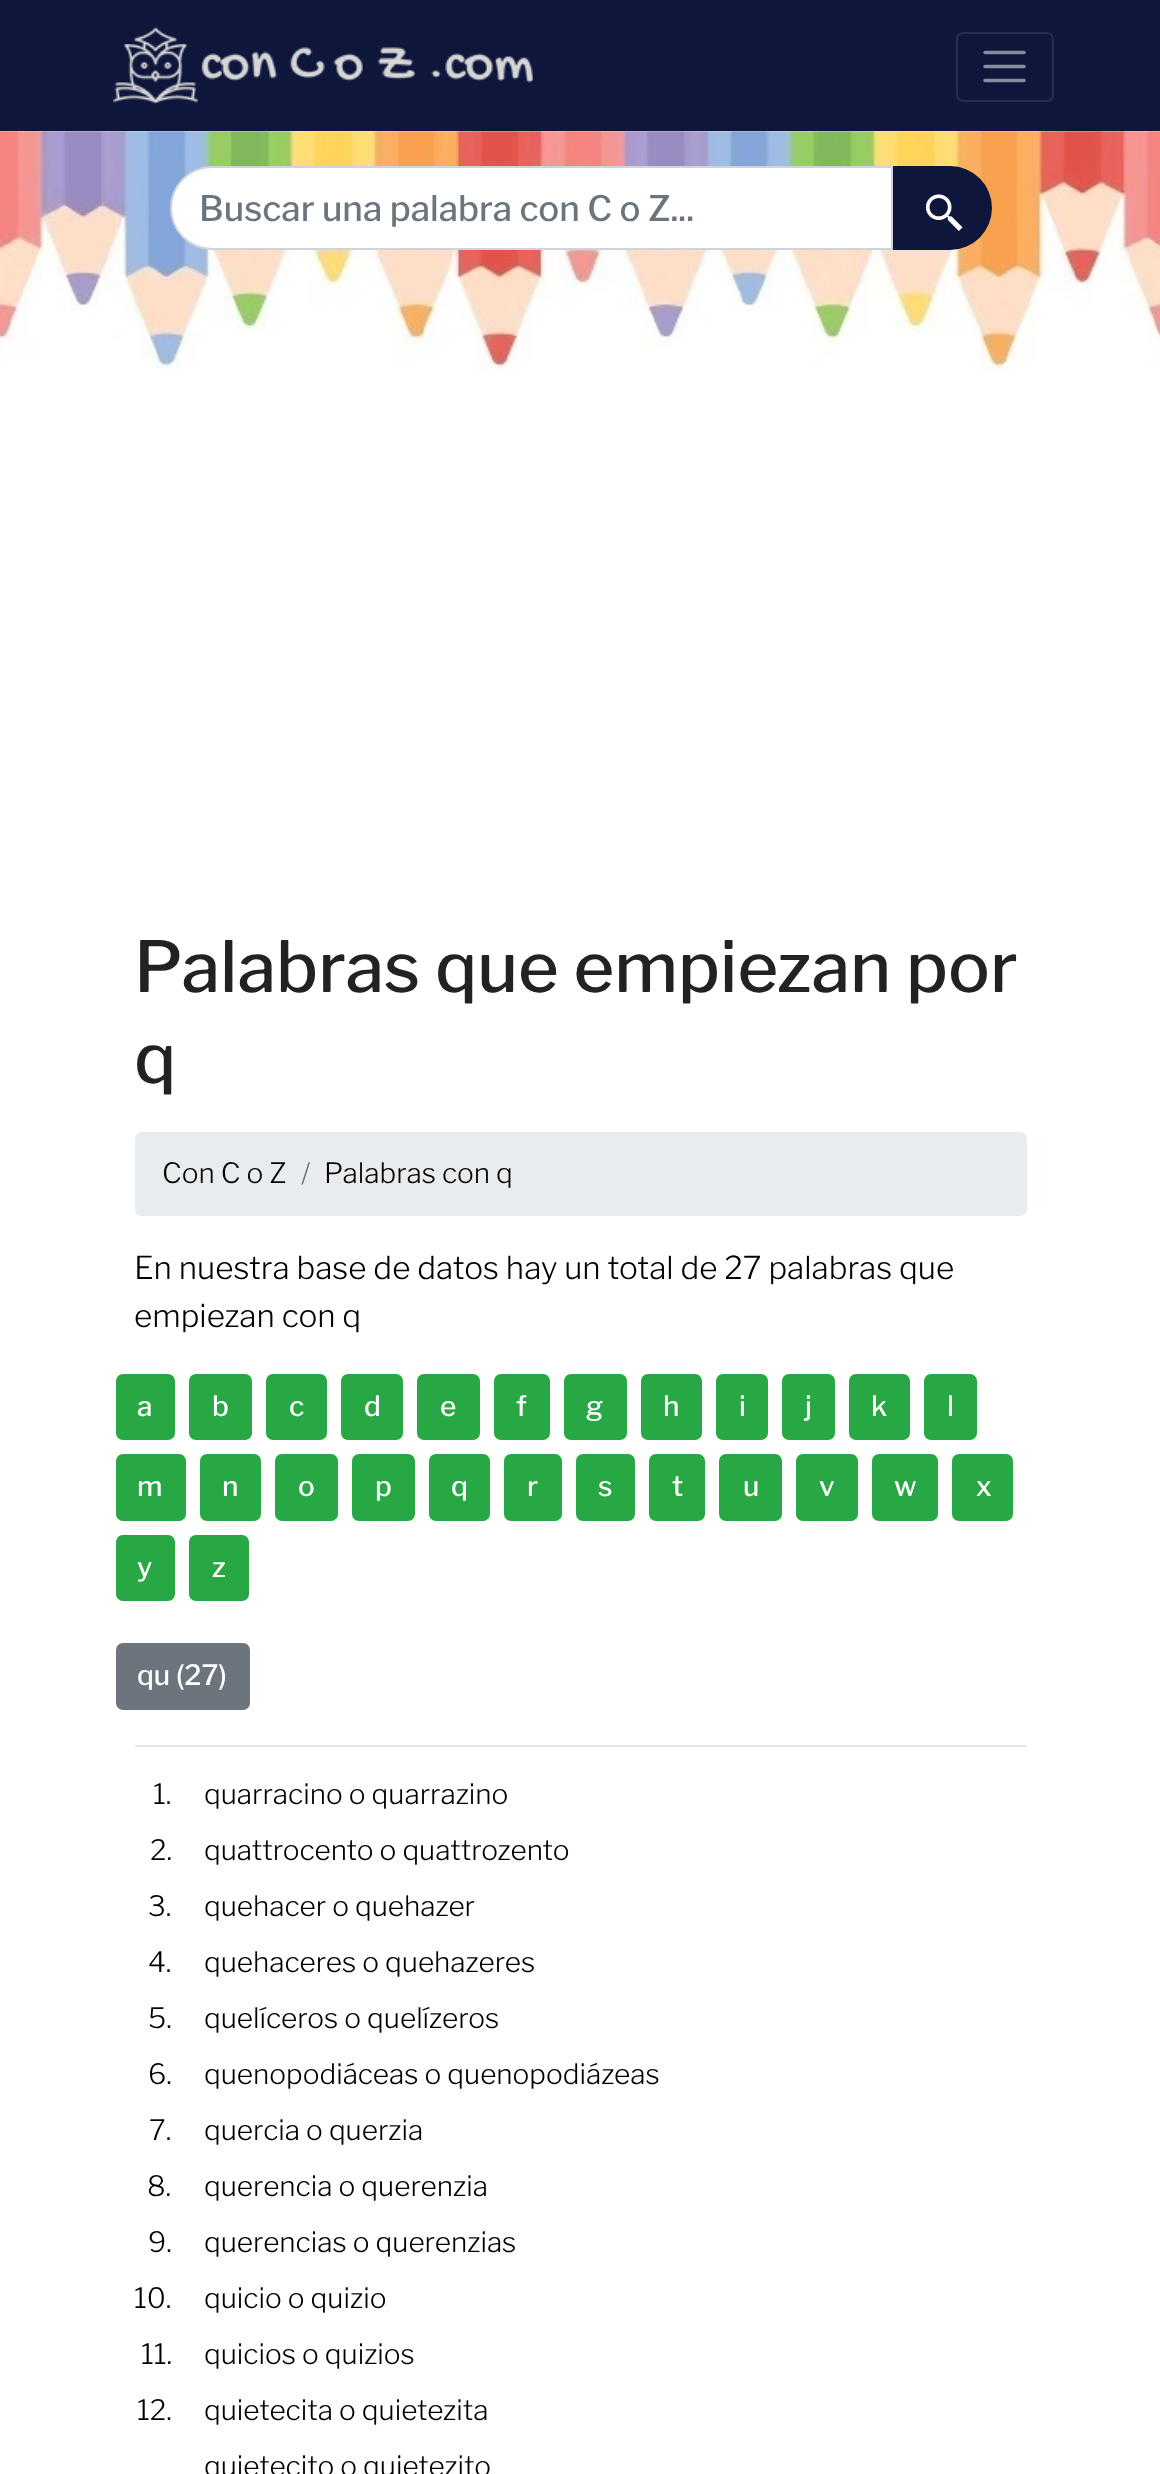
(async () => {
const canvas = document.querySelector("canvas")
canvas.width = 1160
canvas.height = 2474
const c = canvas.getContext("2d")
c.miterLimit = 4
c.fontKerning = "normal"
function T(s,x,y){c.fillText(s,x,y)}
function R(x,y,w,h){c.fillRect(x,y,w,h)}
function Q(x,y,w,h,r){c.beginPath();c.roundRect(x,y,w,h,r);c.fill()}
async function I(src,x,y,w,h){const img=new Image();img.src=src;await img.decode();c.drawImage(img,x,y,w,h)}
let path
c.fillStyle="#fff"
R(0,0,1160,2474)
c.fillStyle="#0f163b"
R(0,0,1160,131)
await I("1.png",112,27,422,77)
c.beginPath()
c.roundRect(957,33,96,68,6)
c.strokeStyle="#272d4f"
c.lineWidth=2
c.stroke()
path = new Path2D("M985 52.5h39m-39 14h39m-39 14h39")
c.strokeStyle="#878b9d"
c.lineWidth=3.5
c.lineCap="round"
c.stroke(path)
await I("2.png",0,131,1160,240)
c.fillStyle="#fff"
c.beginPath()
c.roundRect(171,167,721,82,[41,0,0,41])
c.fill()
c.strokeStyle="#ced4da"
c.lineWidth=2
c.stroke()
c.font="100 35px Libre Franklin"
c.fillStyle="#6c757d"
T("Buscar una palabra con C o Z...",199,221)
c.fillStyle="#0f163b"
c.beginPath()
c.roundRect(893,166,99,84,[0,42,42,0])
c.fill()
await I("3.png",925,194,38,37)
c.font="100 70px Libre Franklin"
c.fillStyle="#222"
T("Palabras que empiezan por",134,992)
T("q",134,1083)
c.fillStyle="#e9ecef"
Q(135,1132,892,84,7)
c.font="100 28px 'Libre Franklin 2'"
c.fillStyle="#000"
T("Con C o Z",162,1183)
c.fillStyle="#6c757d"
T("/",301,1183)
c.fillStyle="#000"
T("Palabras con q",324,1183)
c.font="100 31.5px 'Libre Franklin 2'"
T("En nuestra base de datos hay un total de 27 palabras que",134,1279)
T("empiezan con q",134,1327)
c.fillStyle="#28a745"
c.beginPath()
c.roundRect(117,1375,57,64,6)
c.fill()
c.strokeStyle="#28a745"
c.stroke()
c.font="100 28px Libre Franklin"
c.fillStyle="#fff"
T("a",137,1416)
c.fillStyle="#28a745"
c.beginPath()
c.roundRect(190,1375,61,64,6)
c.fill()
c.stroke()
c.fillStyle="#fff"
T("b",212,1416)
c.fillStyle="#28a745"
c.beginPath()
c.roundRect(267,1375,59,64,6)
c.fill()
c.stroke()
c.fillStyle="#fff"
T("c",289,1416)
c.fillStyle="#28a745"
c.beginPath()
c.roundRect(342,1375,60,64,6)
c.fill()
c.stroke()
c.fillStyle="#fff"
T("d",364,1416)
c.fillStyle="#28a745"
c.beginPath()
c.roundRect(418,1375,61,64,6)
c.fill()
c.stroke()
c.fillStyle="#fff"
T("e",440,1416)
c.fillStyle="#28a745"
c.beginPath()
c.roundRect(495,1375,54,64,6)
c.fill()
c.stroke()
c.fillStyle="#fff"
T("f",516,1416)
c.fillStyle="#28a745"
c.beginPath()
c.roundRect(565,1375,61,64,6)
c.fill()
c.stroke()
c.fillStyle="#fff"
T("g",586,1416)
c.fillStyle="#28a745"
c.beginPath()
c.roundRect(642,1375,59,64,6)
c.fill()
c.stroke()
c.fillStyle="#fff"
T("h",663,1416)
c.fillStyle="#28a745"
c.beginPath()
c.roundRect(717,1375,50,64,6)
c.fill()
c.stroke()
c.fillStyle="#fff"
T("i",739,1416)
c.fillStyle="#28a745"
c.beginPath()
c.roundRect(783,1375,51,64,6)
c.fill()
c.stroke()
c.fillStyle="#fff"
T("j",805,1416)
c.fillStyle="#28a745"
c.beginPath()
c.roundRect(850,1375,59,64,6)
c.fill()
c.stroke()
c.fillStyle="#fff"
T("k",871,1416)
c.fillStyle="#28a745"
c.beginPath()
c.roundRect(925,1375,51,64,6)
c.fill()
c.stroke()
c.fillStyle="#fff"
T("l",947,1416)
c.fillStyle="#28a745"
c.beginPath()
c.roundRect(117,1455,68,65,6)
c.fill()
c.stroke()
c.fillStyle="#fff"
T("m",137,1496)
c.fillStyle="#28a745"
c.beginPath()
c.roundRect(201,1455,59,65,6)
c.fill()
c.stroke()
c.fillStyle="#fff"
T("n",222,1496)
c.fillStyle="#28a745"
c.beginPath()
c.roundRect(276,1455,61,65,6)
c.fill()
c.stroke()
c.fillStyle="#fff"
T("o",298,1496)
c.fillStyle="#28a745"
c.beginPath()
c.roundRect(353,1455,61,65,6)
c.fill()
c.stroke()
c.fillStyle="#fff"
T("p",375,1496)
c.fillStyle="#28a745"
c.beginPath()
c.roundRect(430,1455,59,65,6)
c.fill()
c.stroke()
c.fillStyle="#fff"
T("q",451,1496)
c.fillStyle="#28a745"
c.beginPath()
c.roundRect(505,1455,56,65,6)
c.fill()
c.stroke()
c.fillStyle="#fff"
T("r",527,1496)
c.fillStyle="#28a745"
c.beginPath()
c.roundRect(577,1455,57,65,6)
c.fill()
c.stroke()
c.fillStyle="#fff"
T("s",598,1496)
c.fillStyle="#28a745"
c.beginPath()
c.roundRect(650,1455,54,65,6)
c.fill()
c.stroke()
c.fillStyle="#fff"
T("t",672,1496)
c.fillStyle="#28a745"
c.beginPath()
c.roundRect(720,1455,61,65,6)
c.fill()
c.stroke()
c.fillStyle="#fff"
T("u",743,1496)
c.fillStyle="#28a745"
c.beginPath()
c.roundRect(797,1455,60,65,6)
c.fill()
c.stroke()
c.fillStyle="#fff"
T("v",819,1496)
c.fillStyle="#28a745"
c.beginPath()
c.roundRect(873,1455,64,65,6)
c.fill()
c.stroke()
c.fillStyle="#fff"
T("w",894,1496)
c.fillStyle="#28a745"
c.beginPath()
c.roundRect(953,1455,59,65,6)
c.fill()
c.stroke()
c.fillStyle="#fff"
T("x",976,1496)
c.fillStyle="#28a745"
c.beginPath()
c.roundRect(117,1536,57,64,6)
c.fill()
c.stroke()
c.fillStyle="#fff"
T("y",137,1577)
c.fillStyle="#28a745"
c.beginPath()
c.roundRect(190,1536,58,64,6)
c.fill()
c.stroke()
c.fillStyle="#fff"
T("z",212,1577)
c.fillStyle="#6c757d"
c.beginPath()
c.roundRect(117,1644,132,65,6)
c.fill()
c.strokeStyle="#6c757d"
c.stroke()
c.fillStyle="#fff"
T("qu (27)",137,1685)
c.fillStyle="#e6e6e6"
R(135,1745,892,2)
c.font="100 28px 'Libre Franklin 2'"
c.fillStyle="#000"
T("1.",153,1804)
T("quarracino o quarrazino",204,1804)
T("2.",150,1860)
T("quattrocento o quattrozento",204,1860)
T("3.",148,1916)
T("quehacer o quehazer",204,1916)
T("4.",148,1972)
T("quehaceres o quehazeres",204,1972)
T("5.",148,2028)
T("quelíceros o quelízeros",204,2028)
T("6.",148,2084)
T("quenopodiáceas o quenopodiázeas",204,2084)
T("7.",149,2140)
T("quercia o querzia",204,2140)
T("8.",147,2196)
T("querencia o querenzia",204,2196)
T("9.",148,2252)
T("querencias o querenzias",204,2252)
T("10.",134,2308)
T("quicio o quizio",204,2308)
T("11.",141,2364)
T("quicios o quizios",204,2364)
T("12.",137,2420)
T("quietecita o quietezita",204,2420)
T("quietecito o quietezito",204,2476)
})()
